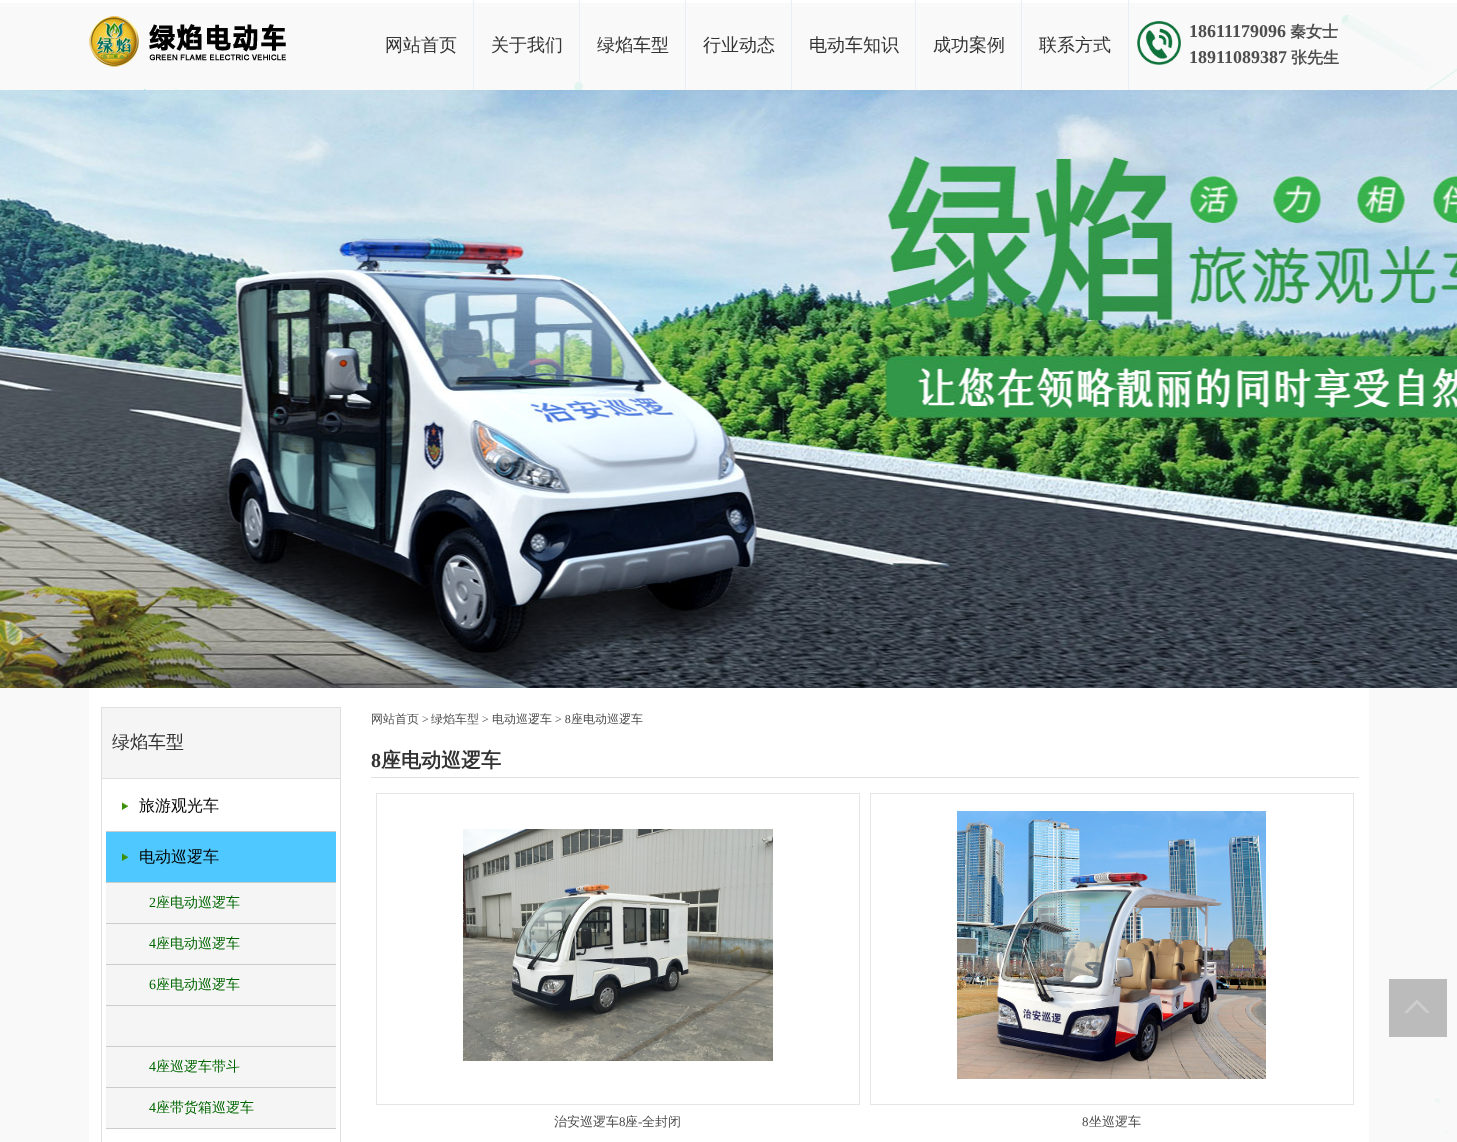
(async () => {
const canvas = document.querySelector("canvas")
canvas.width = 1457
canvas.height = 1142
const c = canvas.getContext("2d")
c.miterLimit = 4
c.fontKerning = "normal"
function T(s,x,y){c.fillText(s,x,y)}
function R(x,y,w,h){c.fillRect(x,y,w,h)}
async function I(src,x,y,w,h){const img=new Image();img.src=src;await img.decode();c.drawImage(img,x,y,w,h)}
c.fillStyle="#fff"
R(0,0,1457,1142)
await I("1.png",0,3,1457,1139)
await I("2.png",89,16,197,51)
c.font="500 18px WenQuanYi Zen Hei"
c.fillStyle="#333"
T("网站首页",385,51)
c.fillStyle="#e9eff5"
R(473,0,1,90)
c.fillStyle="#333"
T("关于我们",491,51)
c.fillStyle="#e9eff5"
R(579,0,1,90)
c.fillStyle="#333"
T("绿焰车型",597,51)
c.fillStyle="#e9eff5"
R(685,0,1,90)
c.fillStyle="#333"
T("行业动态",703,51)
c.fillStyle="#e9eff5"
R(791,0,1,90)
c.fillStyle="#333"
T("电动车知识",809,51)
c.fillStyle="#e9eff5"
R(915,0,1,90)
c.fillStyle="#333"
T("成功案例",933,51)
c.fillStyle="#e9eff5"
R(1021,0,1,90)
c.fillStyle="#333"
T("联系方式",1039,51)
c.fillStyle="#e9eff5"
R(1128,0,1,90)
await I("3.png",1137,21,44,44)
c.font="bold 18px Liberation Serif"
c.fillStyle="#4e4e4e"
T("18611179096",1189,37)
c.font="bold 16px WenQuanYi Zen Hei"
T("秦女士",1290,37)
c.font="bold 18px Liberation Serif"
T("18911089387",1189,63)
c.font="bold 16px WenQuanYi Zen Hei"
T("张先生",1291,63)
await I("4.png",0,90,1457,598)
c.fillStyle="#fff"
R(89,688,1280,454)
c.strokeStyle="#dfdfdf"
c.strokeRect(101.5,707.5,239,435)
c.fillStyle="#f5f5f5"
R(102,708,238,70)
c.font="500 18px WenQuanYi Zen Hei"
c.fillStyle="#333"
T("绿焰车型",112,748)
c.fillStyle="#dfdfdf"
R(102,778,238,1)
await I("5.png",122,802,7,8)
c.fillStyle="#ccc"
R(106,831,230,1)
c.font="500 16px WenQuanYi Zen Hei"
c.fillStyle="#000"
T("旅游观光车",139,811)
c.fillStyle="#4fc8ff"
R(106,832,230,50)
await I("6.png",122,853,7,8)
c.fillStyle="#ccc"
R(106,882,230,1)
c.fillStyle="#000"
T("电动巡逻车",139,862)
c.fillStyle="#f5f5f5"
R(106,883,230,40)
c.fillStyle="#ccc"
R(106,923,230,1)
c.font="14px Liberation Serif"
c.fillStyle="#060"
T("2",149,907)
c.font="500 14px WenQuanYi Zen Hei"
T("座电动巡逻车",156,907)
c.fillStyle="#f5f5f5"
R(106,924,230,40)
c.fillStyle="#ccc"
R(106,964,230,1)
c.font="14px Liberation Serif"
c.fillStyle="#060"
T("4",149,948)
c.font="500 14px WenQuanYi Zen Hei"
T("座电动巡逻车",156,948)
c.fillStyle="#f5f5f5"
R(106,965,230,40)
c.fillStyle="#ccc"
R(106,1005,230,1)
c.font="14px Liberation Serif"
c.fillStyle="#060"
T("6",149,989)
c.font="500 14px WenQuanYi Zen Hei"
T("座电动巡逻车",156,989)
c.fillStyle="#f5f5f5"
R(106,1006,230,40)
c.fillStyle="#ccc"
R(106,1046,230,1)
c.fillStyle="#f5f5f5"
R(106,1047,230,40)
c.fillStyle="#ccc"
R(106,1087,230,1)
c.font="14px Liberation Serif"
c.fillStyle="#060"
T("4",149,1071)
c.font="500 14px WenQuanYi Zen Hei"
T("座巡逻车带斗",156,1071)
c.fillStyle="#f5f5f5"
R(106,1088,230,40)
c.fillStyle="#ccc"
R(106,1128,230,1)
c.font="14px Liberation Serif"
c.fillStyle="#060"
T("4",149,1112)
c.font="500 14px WenQuanYi Zen Hei"
T("座带货箱巡逻车",156,1112)
c.font="500 12px WenQuanYi Zen Hei"
c.fillStyle="#4e4e4e"
T("网站首页",371,723)
c.font="12px Liberation Serif"
T(">",422,723)
c.font="500 12px WenQuanYi Zen Hei"
T("绿焰车型",431,723)
c.font="12px Liberation Serif"
T(">",482,723)
c.font="500 12px WenQuanYi Zen Hei"
T("电动巡逻车",492,723)
c.font="12px Liberation Serif"
T("> 8",555,723)
c.font="500 12px WenQuanYi Zen Hei"
T("座电动巡逻车",571,723)
c.font="bold 20px Liberation Serif"
c.fillStyle="#333"
T("8",371,767)
c.font="bold 20px WenQuanYi Zen Hei"
T("座电动巡逻车",381,767)
c.fillStyle="#dfdfdf"
R(371,777,988,1)
c.strokeStyle="#e6e6e6"
c.strokeRect(376.5,793.5,483,311)
await I("7.png",463,829,310,232)
c.font="500 13px WenQuanYi Zen Hei"
c.fillStyle="#4e4e4e"
T("治安巡逻车",554,1126)
c.font="13px Liberation Serif"
T("8",619,1126)
c.font="500 13px WenQuanYi Zen Hei"
T("座",625,1126)
c.font="13px Liberation Serif"
T("-",638,1126)
c.font="500 13px WenQuanYi Zen Hei"
T("全封闭",642,1126)
c.strokeRect(870.5,793.5,483,311)
await I("8.png",957,811,309,268)
c.font="13px Liberation Serif"
T("8",1082,1126)
c.font="500 13px WenQuanYi Zen Hei"
T("坐巡逻车",1089,1126)
c.fillStyle="#bbb"
R(1389,979,58,58)
await I("9.png",1405,1000,24,13)
})()
